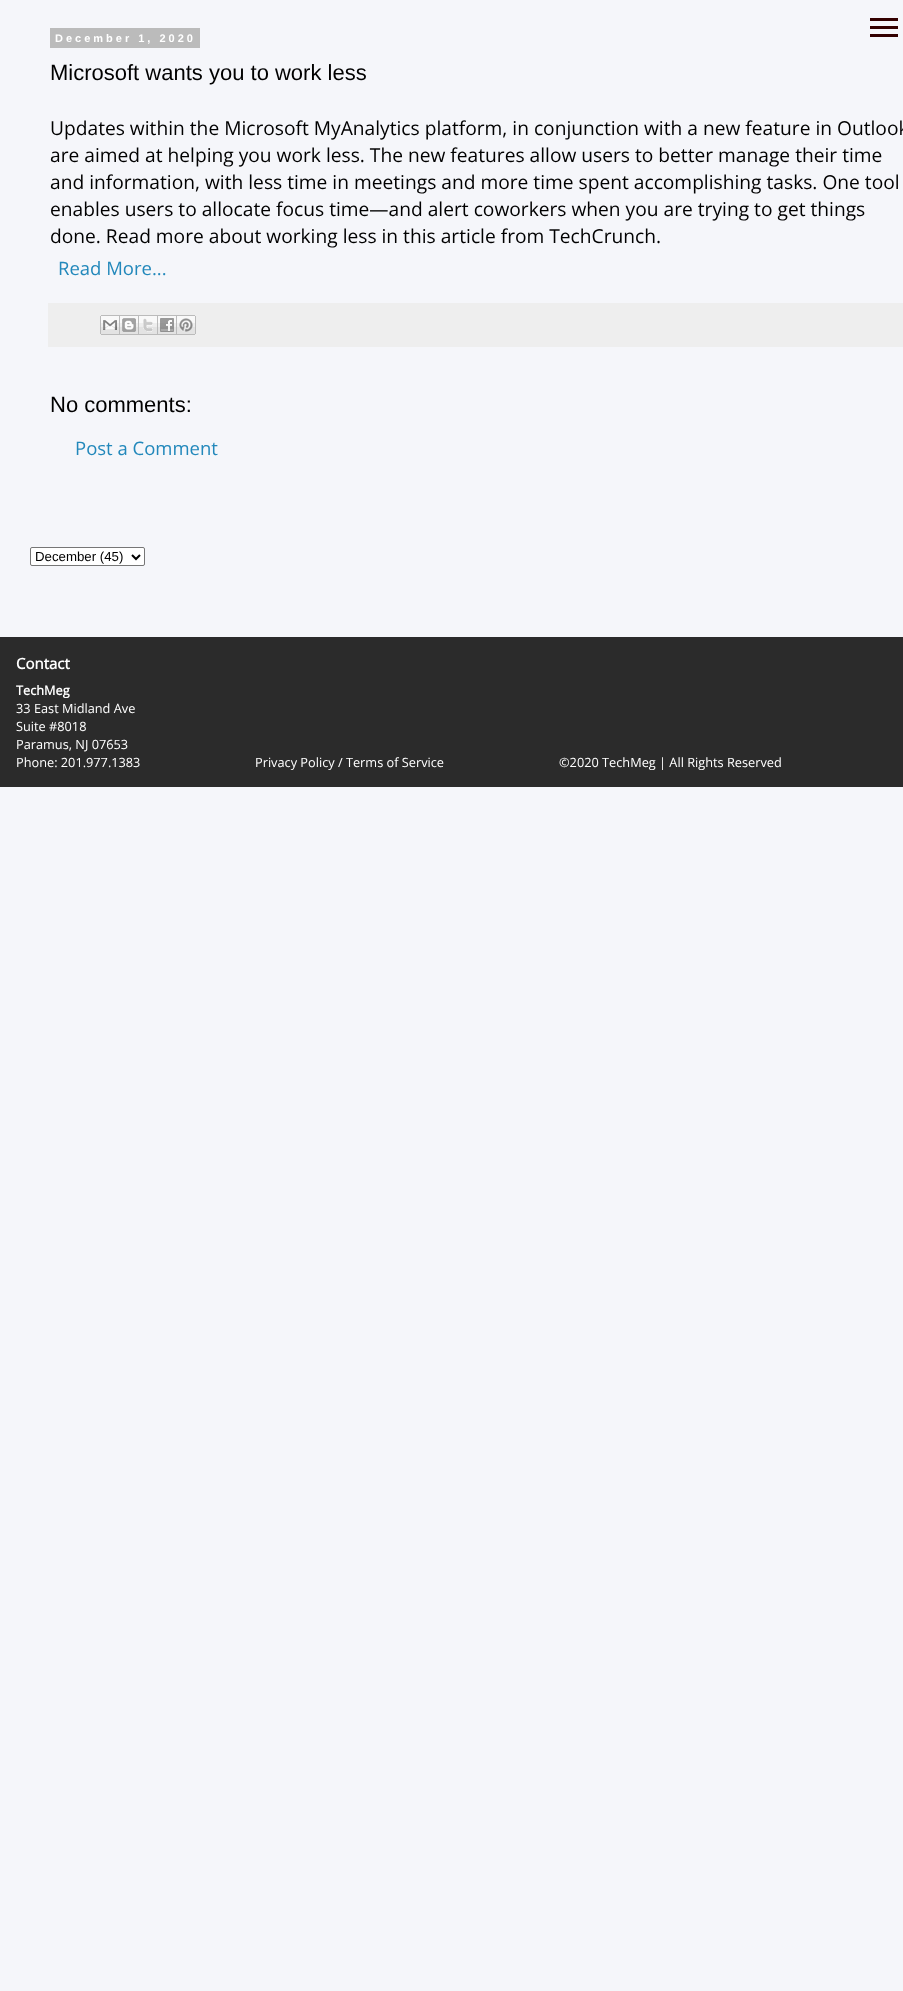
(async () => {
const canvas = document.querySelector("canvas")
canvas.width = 903
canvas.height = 1991
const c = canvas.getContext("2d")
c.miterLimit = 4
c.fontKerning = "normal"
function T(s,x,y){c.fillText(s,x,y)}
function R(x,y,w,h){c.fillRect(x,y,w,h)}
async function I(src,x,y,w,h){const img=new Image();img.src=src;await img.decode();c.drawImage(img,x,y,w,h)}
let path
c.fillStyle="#f5f6fa"
R(0,0,903,1991)
c.fillStyle="#300"
R(870,18,28,3)
R(870,26,28,3)
R(870,34,28,3)
c.fillStyle="#bbb"
R(50,28,150,20)
c.letterSpacing="3px"
c.font="bold 11px Liberation Sans"
c.fillStyle="#fff"
T("December 1, 2020",55,42)
c.letterSpacing="0px"
c.font="22px Liberation Sans"
c.fillStyle="#000"
T("Microsoft wants you to work less",50,80)
c.font="19.2px Open Sans"
T("Updates within the Microsoft MyAnalytics platform, in conjunction with a new feature in Outlook",50,135)
T("are aimed at helping you work less. The new features allow users to better manage their time",50,162)
T("and information, with less time in meetings and more time spent accomplishing tasks. One tool",50,189)
T("enables users to allocate focus time—and alert coworkers when you are trying to get things",50,216)
T("done. Read more about working less in this article from TechCrunch.",50,243)
c.font="18.5px Open Sans"
c.fillStyle="#28b"
T("Read More...",58,275)
c.fillStyle="#eee"
R(48,303,855,44)
await I("1.png",100,315,20,20)
await I("2.png",120,315,19,20)
await I("3.png",139,315,19,20)
await I("4.png",158,315,19,20)
await I("5.png",177,315,19,20)
c.font="22px Liberation Sans"
c.fillStyle="#000"
T("No comments:",50,412)
c.font="18.5px Open Sans"
c.fillStyle="#28b"
T("Post a Comment",75,455)
c.fillStyle="#fff"
c.beginPath()
c.roundRect(30.5,547.5,114,18,1.5)
c.fill()
c.strokeStyle="#767676"
c.stroke()
path = new Path2D("M132 555l4 4l4-4")
c.strokeStyle="#000"
c.lineWidth=2
c.stroke(path)
c.font="13.25px Liberation Sans"
c.fillStyle="#000"
T("December (45)",35,561)
c.fillStyle="#2b2b2b"
R(0,637,903,150)
c.font="bold 15px Open Sans"
c.fillStyle="#fff"
T("Contact",16,669)
c.font="bold 12.75px Open Sans"
T("TechMeg",16,695)
c.font="12.75px Open Sans"
T("33 East Midland Ave",16,713)
T("Suite #8018",16,731)
T("Paramus, NJ 07653",16,749)
T("Phone: 201.977.1383",16,767)
T("Privacy Policy / Terms of Service",255,767)
T("©2020 TechMeg | All Rights Reserved",559,767)
})()
